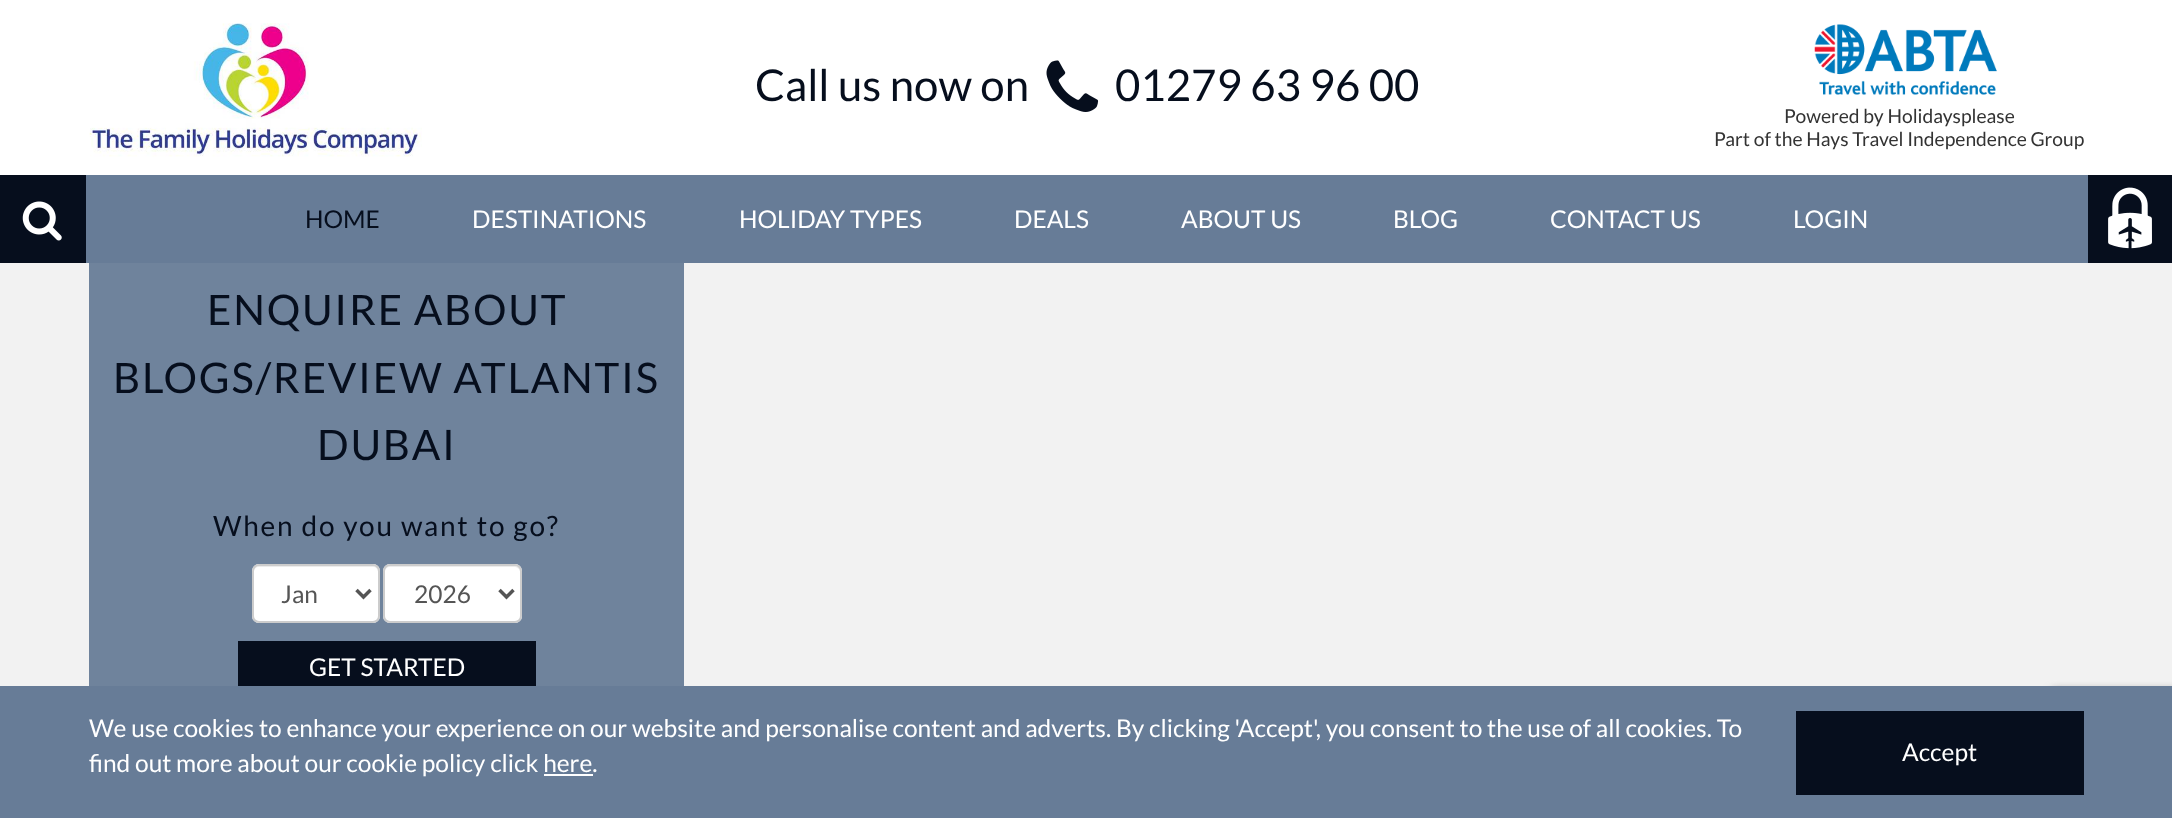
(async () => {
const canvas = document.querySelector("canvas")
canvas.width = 2172
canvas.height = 818
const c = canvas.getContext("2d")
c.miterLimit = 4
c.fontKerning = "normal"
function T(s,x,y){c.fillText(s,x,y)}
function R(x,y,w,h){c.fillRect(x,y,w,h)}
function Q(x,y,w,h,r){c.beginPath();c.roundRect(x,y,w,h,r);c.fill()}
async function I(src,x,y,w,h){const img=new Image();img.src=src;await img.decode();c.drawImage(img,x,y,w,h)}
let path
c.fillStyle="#fff"
R(0,0,2172,818)
await I("1.png",89,23,333,134)
c.font="43.75px Lato"
c.fillStyle="#060e1d"
T("Call us now on",755,101)
await I("2.png",1046,60,53,52)
T("01279 63 96 00",1115,101)
await I("3.png",1814,24,183,71)
c.font="19.25px Lato"
c.fillStyle="#333"
T("Powered by Holidaysplease",1784,123)
T("Part of the Hays Travel Independence Group",1714,146)
c.fillStyle="#677c97"
R(86,175,2002,88)
c.fillStyle="#060e1d"
R(0,175,86,88)
await I("4.png",22,201,40,40)
c.font="24.5px Lato"
T("HOME",305,228)
c.fillStyle="#fff"
T("DESTINATIONS",472,228)
T("HOLIDAY TYPES",739,228)
T("DEALS",1014,228)
T("ABOUT US",1181,228)
T("BLOG",1393,228)
T("CONTACT US",1550,228)
T("LOGIN",1793,228)
c.fillStyle="#060e1d"
R(2088,175,84,88)
await I("5.png",2108,187,44,62)
c.fillStyle="#f2f2f2"
R(0,263,2172,423)
c.fillStyle="#6f839c"
R(89,263,595,423)
c.letterSpacing="1.75px"
c.font="42px Lato"
c.fillStyle="#060e1d"
T("ENQUIRE ABOUT",207,325)
T("BLOGS/REVIEW ATLANTIS",113,393)
T("DUBAI",317,460)
c.font="28px Lato"
T("When do you want to go?",213,536)
c.fillStyle="#fff"
Q(252,564,128,59,7)
c.fillStyle="#ececec"
path = new Path2D("M259 567h114c3 0 5 2 5 5v-2c0-3-2-5-5-5h-114c-3 0-5 2-5 5v2c0-3 2-5 5-5z")
c.fill(path)
c.beginPath()
c.roundRect(253,565,126,57,6)
c.strokeStyle="#ccc"
c.lineWidth=2
c.stroke()
path = new Path2D("M356.5 590l7 7l7-7")
c.strokeStyle="#555"
c.lineWidth=3.5
c.stroke(path)
c.letterSpacing="0px"
c.font="24.5px Lato"
c.fillStyle="#555"
T("Jan",281,603)
c.fillStyle="#fff"
Q(383,564,139,59,7)
c.fillStyle="#ececec"
path = new Path2D("M390 567h124c3 0 6 2 6 5v-2c0-3-2-5-5-5h-125c-3 0-5 2-5 5v2c0-3 2-5 5-5z")
c.fill(path)
c.beginPath()
c.roundRect(384,565,137,57,6)
c.strokeStyle="#ccc"
c.lineWidth=2
c.stroke()
path = new Path2D("M499.5 590l7 7l7-7")
c.strokeStyle="#555"
c.lineWidth=3.5
c.stroke(path)
c.fillStyle="#555"
T("2026",414,603)
c.fillStyle="#060e1d"
R(238,641,298,45)
c.fillStyle="#fff"
T("GET STARTED",309,676)
c.fillStyle="#808080"
c.filter="blur(4.5px)"
c.beginPath()
c.roundRect(2051,690,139,105,4)
c.fill()
c.filter="none"
c.fillStyle="#677c97"
R(0,686,2172,132)
c.fillStyle="#fff"
T("We use cookies to enhance your experience on our website and personalise content and adverts. By clicking 'Accept', you consent to the use of all cookies. To",89,737)
T("find out more about our cookie policy click here.",89,772)
R(544,774,49,2)
c.fillStyle="#060e1d"
R(1796,711,288,84)
c.fillStyle="#fff"
T("Accept",1902,761)
})()
